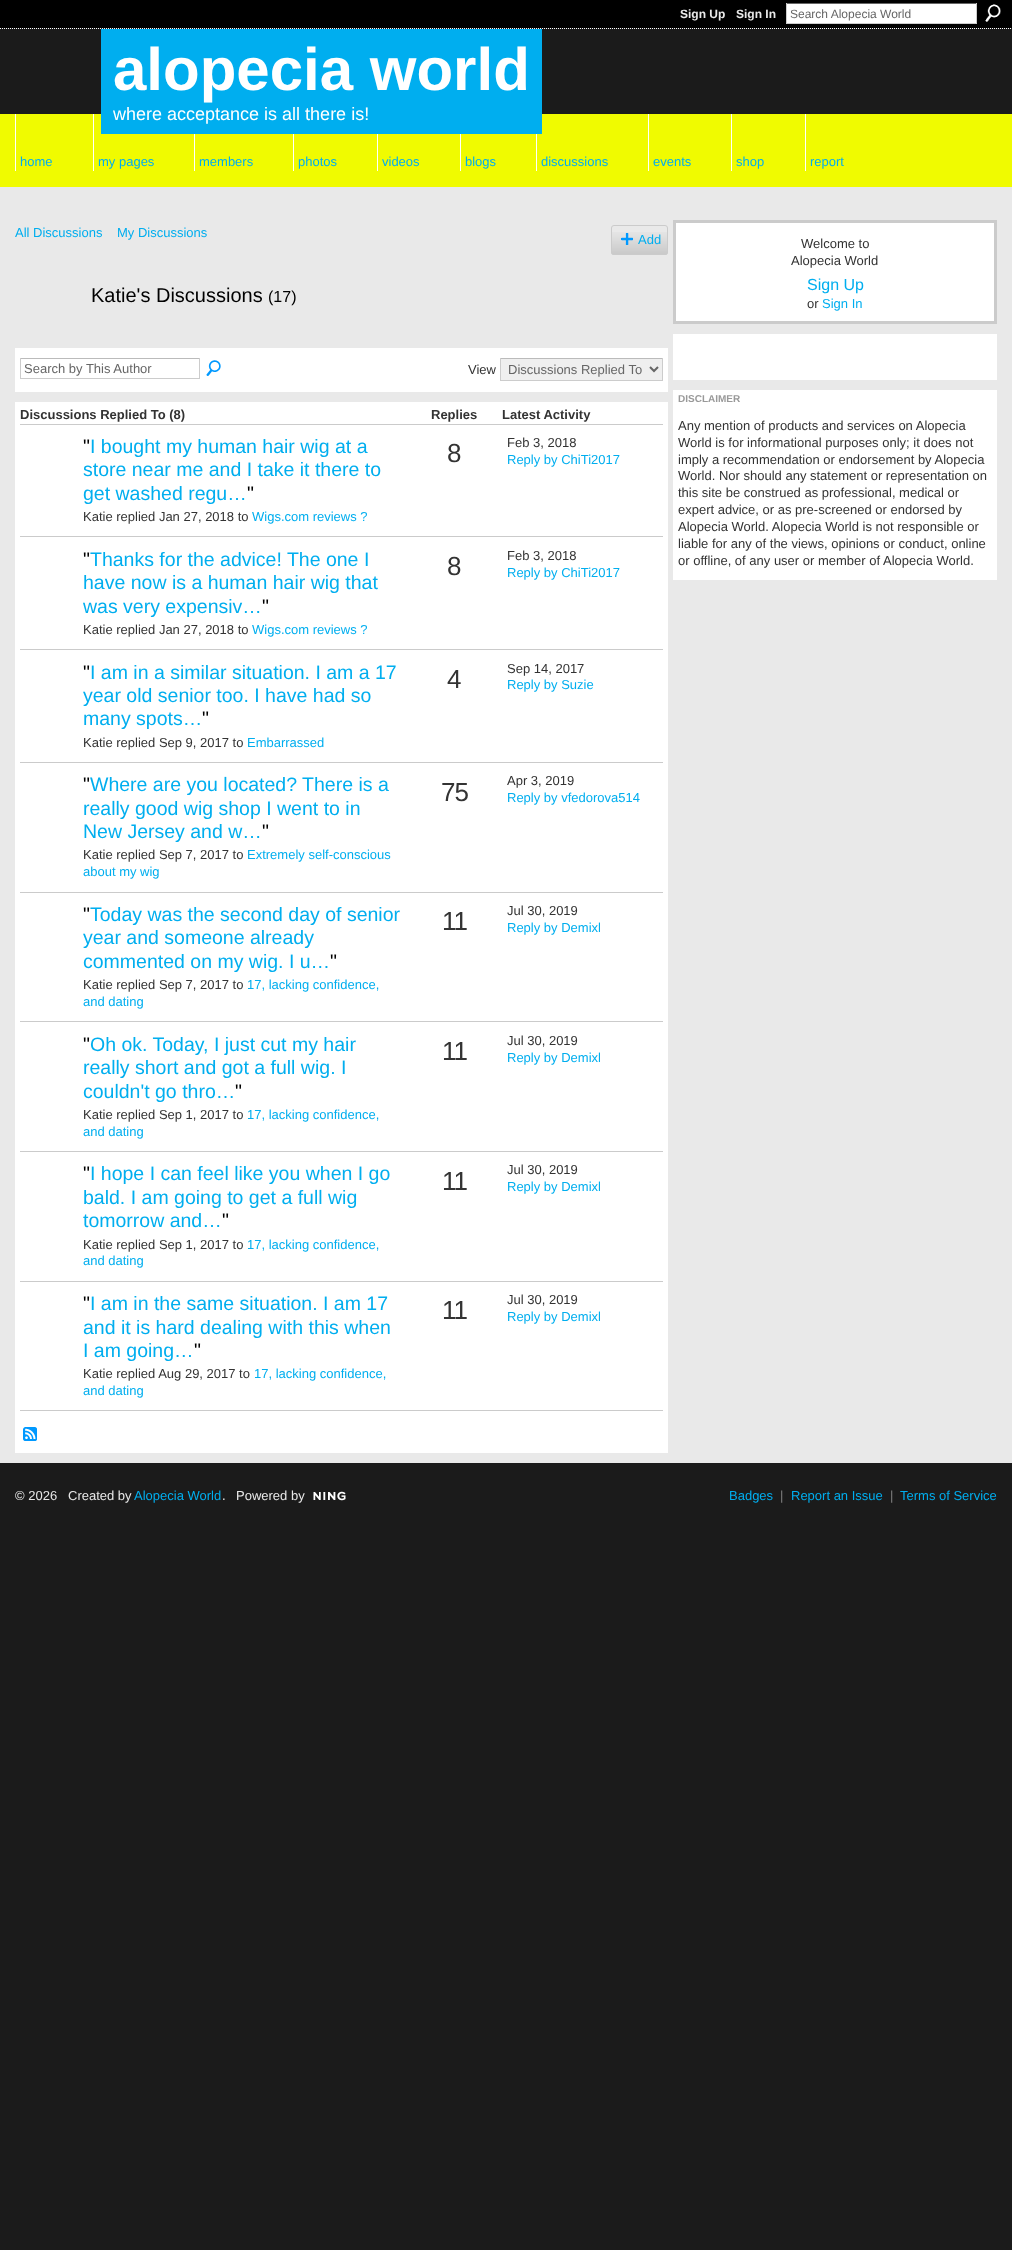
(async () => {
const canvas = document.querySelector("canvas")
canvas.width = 1012
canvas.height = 2250
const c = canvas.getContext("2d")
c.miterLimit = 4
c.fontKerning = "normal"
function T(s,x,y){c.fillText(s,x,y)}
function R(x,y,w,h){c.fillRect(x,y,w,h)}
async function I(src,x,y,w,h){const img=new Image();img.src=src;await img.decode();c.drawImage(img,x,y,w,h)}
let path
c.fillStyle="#1b1b1b"
R(0,0,1012,2250)
c.fillStyle="#000"
R(0,0,1012,28)
c.font="bold 12px Liberation Sans"
c.fillStyle="#e9e9e9"
T("Sign Up",680,18)
T("Sign In",736,18)
c.fillStyle="#fff"
R(787,4,189,19)
c.fillStyle="#666"
R(786,3,191,1)
c.fillStyle="#ccc"
R(976,3,1,21)
R(786,23,191,1)
R(786,3,1,21)
c.font="12px Liberation Sans"
c.fillStyle="#666"
T("Search Alopecia World",790,18)
await I("1.png",985,4,16,18)
path = new Path2D("M0 28.5h1012")
c.strokeStyle="#fff"
c.setLineDash([1,1])
c.stroke(path)
c.fillStyle="#f0fb00"
R(0,114,1012,73)
c.fillStyle="#00aeef"
R(101,29,441,105)
c.font="bold 60px Liberation Sans"
c.fillStyle="#fff"
T("alopecia world",113,90)
c.font="18px Liberation Sans"
T("where acceptance is all there is!",113,120)
R(15,114,1,57)
c.font="13px Liberation Sans"
c.fillStyle="#00aeef"
T("home",20,166)
c.fillStyle="#fff"
R(93,114,1,57)
c.fillStyle="#00aeef"
T("my pages",98,166)
c.fillStyle="#fff"
R(194,134,1,37)
c.fillStyle="#00aeef"
T("members",199,166)
c.fillStyle="#fff"
R(293,134,1,37)
c.fillStyle="#00aeef"
T("photos",298,166)
c.fillStyle="#fff"
R(377,134,1,37)
c.fillStyle="#00aeef"
T("videos",382,166)
c.fillStyle="#fff"
R(460,134,1,37)
c.fillStyle="#00aeef"
T("blogs",465,166)
c.fillStyle="#fff"
R(536,134,1,37)
c.fillStyle="#00aeef"
T("discussions",541,166)
c.fillStyle="#fff"
R(648,114,1,57)
c.fillStyle="#00aeef"
T("events",653,166)
c.fillStyle="#fff"
R(731,114,1,57)
c.fillStyle="#00aeef"
T("shop",736,166)
c.fillStyle="#fff"
R(805,114,1,57)
c.fillStyle="#00aeef"
T("report",810,166)
c.fillStyle="#e9e9e9"
R(0,187,1012,1276)
c.fillStyle="#00aeef"
T("All Discussions",15,237)
T("My Discussions",117,237)
await I("2.png",611,232,57,23)
c.beginPath()
c.roundRect(611.5,225.5,56,29,2.5)
c.strokeStyle="#cbcbcb"
c.setLineDash([])
c.stroke()
await I("3.png",621,233,12,12)
T("Add",638,244)
c.font="20px Liberation Sans"
c.fillStyle="#000"
T("Katie's Discussions",91,302)
c.font="16px Liberation Sans"
T("(17)",268,302)
c.fillStyle="#fff"
R(15,348,653,44)
c.fillStyle="#bbb"
R(20,358,180,1)
c.fillStyle="#ccc"
R(199,358,1,21)
R(20,378,180,1)
R(20,358,1,21)
c.font="13px Liberation Sans"
c.fillStyle="#666"
T("Search by This Author",24,373)
await I("4.png",206,360,15,16)
c.fillStyle="#333"
T("View",468,374)
c.fillStyle="#efefef"
R(501,359,161,21)
c.fillStyle="#bbb"
R(500,358,163,1)
c.fillStyle="#ccc"
R(662,358,1,23)
R(500,380,163,1)
R(500,358,1,23)
path = new Path2D("M650 367l4 4l4-4")
c.strokeStyle="#666"
c.lineWidth=2
c.stroke(path)
c.fillStyle="#666"
T("Discussions Replied To",508,374)
c.fillStyle="#fff"
R(15,402,653,1051)
c.font="bold 13px Liberation Sans"
c.fillStyle="#333"
T("Discussions Replied To (8)",20,419)
T("Replies",431,419)
c.fillStyle="#cbcbcb"
R(20,424,643,1)
c.fillStyle="#333"
T("Latest Activity",502,419)
c.font="19.5px Liberation Sans"
c.fillStyle="#000"
T("\"",83,453)
c.fillStyle="#00aeef"
T("I bought my human hair wig at a",90,453)
T("store near me and I take it there to",83,476)
T("get washed regu…",83,500)
c.fillStyle="#000"
T("\"",247,500)
c.font="13px Liberation Sans"
c.fillStyle="#333"
T("Katie replied Jan 27, 2018 to",83,521)
c.fillStyle="#00aeef"
T("Wigs.com reviews ?",252,521)
c.letterSpacing="-1px"
c.font="26px Liberation Sans"
c.fillStyle="#333"
T("8",447,462)
c.fillStyle="#cbcbcb"
R(20,536,643,1)
c.letterSpacing="0px"
c.font="13px Liberation Sans"
c.fillStyle="#333"
T("Feb 3, 2018",507,447)
c.fillStyle="#00aeef"
T("Reply by ChiTi2017",507,464)
c.font="19.5px Liberation Sans"
c.fillStyle="#000"
T("\"",83,566)
c.fillStyle="#00aeef"
T("Thanks for the advice! The one I",90,566)
T("have now is a human hair wig that",83,589)
T("was very expensiv…",83,613)
c.fillStyle="#000"
T("\"",262,613)
c.font="13px Liberation Sans"
c.fillStyle="#333"
T("Katie replied Jan 27, 2018 to",83,634)
c.fillStyle="#00aeef"
T("Wigs.com reviews ?",252,634)
c.letterSpacing="-1px"
c.font="26px Liberation Sans"
c.fillStyle="#333"
T("8",447,575)
c.fillStyle="#cbcbcb"
R(20,649,643,1)
c.letterSpacing="0px"
c.font="13px Liberation Sans"
c.fillStyle="#333"
T("Feb 3, 2018",507,560)
c.fillStyle="#00aeef"
T("Reply by ChiTi2017",507,577)
c.font="19.5px Liberation Sans"
c.fillStyle="#000"
T("\"",83,679)
c.fillStyle="#00aeef"
T("I am in a similar situation. I am a 17",90,679)
T("year old senior too. I have had so",83,702)
T("many spots…",83,725)
c.fillStyle="#000"
T("\"",202,725)
c.font="13px Liberation Sans"
c.fillStyle="#333"
T("Katie replied Sep 9, 2017 to",83,747)
c.fillStyle="#00aeef"
T("Embarrassed",247,747)
c.letterSpacing="-1px"
c.font="26px Liberation Sans"
c.fillStyle="#333"
T("4",447,688)
c.fillStyle="#cbcbcb"
R(20,762,643,1)
c.letterSpacing="0px"
c.font="13px Liberation Sans"
c.fillStyle="#333"
T("Sep 14, 2017",507,673)
c.fillStyle="#00aeef"
T("Reply by Suzie",507,689)
c.font="19.5px Liberation Sans"
c.fillStyle="#000"
T("\"",83,791)
c.fillStyle="#00aeef"
T("Where are you located? There is a",90,791)
T("really good wig shop I went to in",83,815)
T("New Jersey and w…",83,838)
c.fillStyle="#000"
T("\"",262,838)
c.font="13px Liberation Sans"
c.fillStyle="#333"
T("Katie replied Sep 7, 2017 to",83,859)
c.fillStyle="#00aeef"
T("Extremely self-conscious",247,859)
T("about my wig",83,876)
c.letterSpacing="-1px"
c.font="26px Liberation Sans"
c.fillStyle="#333"
T("75",441,801)
c.fillStyle="#cbcbcb"
R(20,892,643,1)
c.letterSpacing="0px"
c.font="13px Liberation Sans"
c.fillStyle="#333"
T("Apr 3, 2019",507,785)
c.fillStyle="#00aeef"
T("Reply by vfedorova514",507,802)
c.font="19.5px Liberation Sans"
c.fillStyle="#000"
T("\"",83,921)
c.fillStyle="#00aeef"
T("Today was the second day of senior",90,921)
T("year and someone already",83,944)
T("commented on my wig. I u…",83,968)
c.fillStyle="#000"
T("\"",330,968)
c.font="13px Liberation Sans"
c.fillStyle="#333"
T("Katie replied Sep 7, 2017 to",83,989)
c.fillStyle="#00aeef"
T("17, lacking confidence,",247,989)
T("and dating",83,1006)
c.letterSpacing="-1px"
c.font="26px Liberation Sans"
c.fillStyle="#333"
T("11",442,930)
c.fillStyle="#cbcbcb"
R(20,1021,643,1)
c.letterSpacing="0px"
c.font="13px Liberation Sans"
c.fillStyle="#333"
T("Jul 30, 2019",507,915)
c.fillStyle="#00aeef"
T("Reply by Demixl",507,932)
c.font="19.5px Liberation Sans"
c.fillStyle="#000"
T("\"",83,1051)
c.fillStyle="#00aeef"
T("Oh ok. Today, I just cut my hair",90,1051)
T("really short and got a full wig. I",83,1074)
T("couldn't go thro…",83,1098)
c.fillStyle="#000"
T("\"",235,1098)
c.font="13px Liberation Sans"
c.fillStyle="#333"
T("Katie replied Sep 1, 2017 to",83,1119)
c.fillStyle="#00aeef"
T("17, lacking confidence,",247,1119)
T("and dating",83,1136)
c.letterSpacing="-1px"
c.font="26px Liberation Sans"
c.fillStyle="#333"
T("11",442,1060)
c.fillStyle="#cbcbcb"
R(20,1151,643,1)
c.letterSpacing="0px"
c.font="13px Liberation Sans"
c.fillStyle="#333"
T("Jul 30, 2019",507,1045)
c.fillStyle="#00aeef"
T("Reply by Demixl",507,1062)
c.font="19.5px Liberation Sans"
c.fillStyle="#000"
T("\"",83,1180)
c.fillStyle="#00aeef"
T("I hope I can feel like you when I go",90,1180)
T("bald. I am going to get a full wig",83,1204)
T("tomorrow and…",83,1227)
c.fillStyle="#000"
T("\"",222,1227)
c.font="13px Liberation Sans"
c.fillStyle="#333"
T("Katie replied Sep 1, 2017 to",83,1249)
c.fillStyle="#00aeef"
T("17, lacking confidence,",247,1249)
T("and dating",83,1265)
c.letterSpacing="-1px"
c.font="26px Liberation Sans"
c.fillStyle="#333"
T("11",442,1190)
c.fillStyle="#cbcbcb"
R(20,1281,643,1)
c.letterSpacing="0px"
c.font="13px Liberation Sans"
c.fillStyle="#333"
T("Jul 30, 2019",507,1174)
c.fillStyle="#00aeef"
T("Reply by Demixl",507,1191)
c.font="19.5px Liberation Sans"
c.fillStyle="#000"
T("\"",83,1310)
c.fillStyle="#00aeef"
T("I am in the same situation. I am 17",90,1310)
T("and it is hard dealing with this when",83,1334)
T("I am going…",83,1357)
c.fillStyle="#000"
T("\"",194,1357)
c.font="13px Liberation Sans"
c.fillStyle="#333"
T("Katie replied Aug 29, 2017 to",83,1378)
c.fillStyle="#00aeef"
T("17, lacking confidence,",254,1378)
T("and dating",83,1395)
c.letterSpacing="-1px"
c.font="26px Liberation Sans"
c.fillStyle="#333"
T("11",442,1319)
c.fillStyle="#cbcbcb"
R(20,1410,643,1)
c.letterSpacing="0px"
c.font="13px Liberation Sans"
c.fillStyle="#333"
T("Jul 30, 2019",507,1304)
c.fillStyle="#00aeef"
T("Reply by Demixl",507,1321)
await I("5.png",23,1427,14,14)
c.fillStyle="#fff"
c.beginPath()
c.rect(674.5,221.5,321,101)
c.fill()
c.strokeStyle="#cbcbcb"
c.lineWidth=3
c.stroke()
c.fillStyle="#333"
T("Welcome to",801,248)
T("Alopecia World",791,265)
c.font="16px Liberation Sans"
c.fillStyle="#00aeef"
T("Sign Up",807,290)
c.font="13px Liberation Sans"
c.fillStyle="#333"
T("or",807,308)
c.fillStyle="#00aeef"
T("Sign In",822,308)
c.fillStyle="#fff"
R(673,334,324,46)
R(673,390,324,190)
c.font="bold 10px Liberation Sans"
c.fillStyle="#999"
T("DISCLAIMER",678,402)
c.font="13px Liberation Sans"
c.fillStyle="#333"
T("Any mention of products and services on Alopecia",678,430)
T("World is for informational purposes only; it does not",678,447)
T("imply a recommendation or endorsement by Alopecia",678,464)
T("World. Nor should any statement or representation on",678,480)
T("this site be construed as professional, medical or",678,497)
T("expert advice, or as pre-screened or endorsed by",678,514)
T("Alopecia World. Alopecia World is not responsible or",678,531)
T("liable for any of the views, opinions or conduct, online",678,548)
T("or offline, of any user or member of Alopecia World.",678,565)
c.fillStyle="#e9e9e9"
T("© 2026",15,1500)
T("Created by",68,1500)
c.fillStyle="#00aeef"
T("Alopecia World",134,1500)
c.fillStyle="#e9e9e9"
T(".",222,1500)
T("Powered by",236,1500)
await I("6.png",313,1491,33,10)
c.fillStyle="#00aeef"
T("Badges",729,1500)
c.fillStyle="#7f7f7f"
T("|",780,1500)
c.fillStyle="#00aeef"
T("Report an Issue",791,1500)
c.fillStyle="#7f7f7f"
T("|",890,1500)
c.fillStyle="#00aeef"
T("Terms of Service",900,1500)
})()
